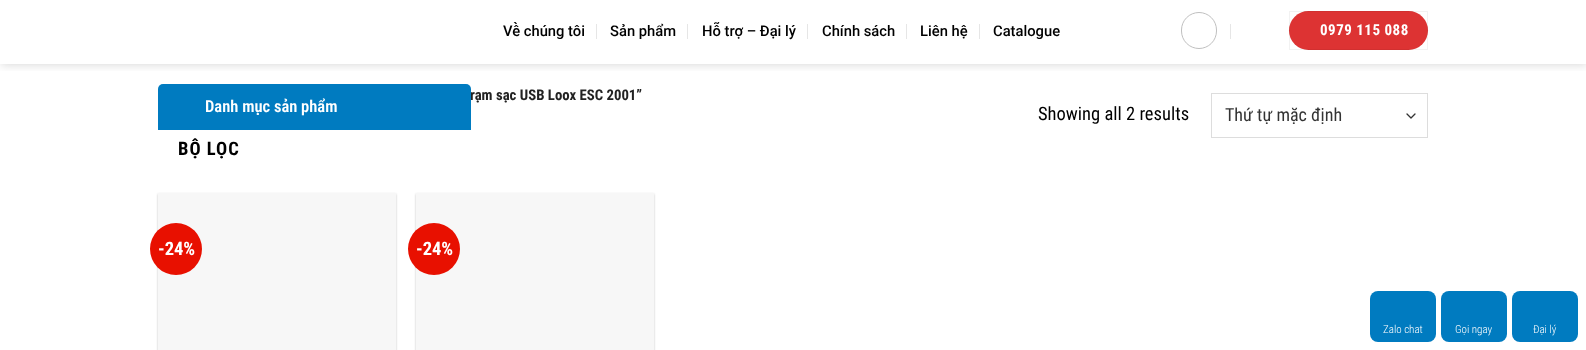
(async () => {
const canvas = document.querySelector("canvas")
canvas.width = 1586
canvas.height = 350
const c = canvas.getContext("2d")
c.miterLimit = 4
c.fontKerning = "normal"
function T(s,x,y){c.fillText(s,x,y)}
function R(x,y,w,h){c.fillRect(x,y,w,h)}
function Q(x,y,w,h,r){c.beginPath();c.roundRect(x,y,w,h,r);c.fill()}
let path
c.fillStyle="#fff"
R(0,0,1586,350)
c.save()
c.beginPath()
c.rect(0,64,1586,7)
c.clip()
c.fillStyle="#00000026"
c.filter="blur(5px)"
c.beginPath()
c.rect(1,1,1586,64)
c.fill()
c.filter="none"
c.restore()
c.font="500 14.75px Roboto"
c.fillStyle="#000"
T("Về chúng tôi",503,36)
c.fillStyle="#e6e6e6"
R(596,24,1,15)
c.fillStyle="#000"
T("Sản phẩm",610,36)
c.fillStyle="#e6e6e6"
R(687,24,1,15)
c.fillStyle="#000"
T("Hỗ trợ – Đại lý",702,36)
c.fillStyle="#e6e6e6"
R(807,24,1,15)
c.fillStyle="#000"
T("Chính sách",822,36)
c.fillStyle="#e6e6e6"
R(906,24,1,15)
c.fillStyle="#000"
T("Liên hệ",920,36)
c.fillStyle="#e6e6e6"
R(979,24,1,15)
c.fillStyle="#000"
T("Catalogue",993,36)
c.beginPath()
c.roundRect(1181.5,12.5,35,36,17.5)
c.strokeStyle="#c0c0c0"
c.stroke()
c.fillStyle="#e6e6e6"
R(1230,24,1,15)
c.fillStyle="#d33"
Q(1289,11,139,39,19.5)
c.strokeStyle="#0000000d"
c.strokeRect(1289.5,11.5,138,38)
c.letterSpacing="0.5px"
c.font="bold 15px Roboto Condensed"
c.fillStyle="#fff"
T("0979 115 088",1320,35)
c.letterSpacing="0px"
c.font="bold 14.75px Roboto Condensed"
c.fillStyle="#222"
T("rạm sạc USB Loox ESC 2001”",470,100)
c.fillStyle="#007bc0"
c.beginPath()
c.roundRect(158,84,313,46,[5,5,0,0])
c.fill()
c.font="600 16.5px Roboto Condensed"
c.fillStyle="#fff"
T("Danh mục sản phẩm",205,112)
c.letterSpacing="1px"
c.font="bold 18.5px Roboto Condensed"
c.fillStyle="#000"
T("BỘ LỌC",178,155)
c.letterSpacing="0px"
c.font="18.5px Roboto Condensed"
T("Showing all 2 results",1038,120)
path = new Path2D("M1407 114l4 4l4-4")
c.strokeStyle="#333"
c.lineWidth=1.3
c.lineCap="round"
c.lineJoin="round"
c.stroke(path)
c.strokeStyle="#ddd"
c.lineWidth=1
c.lineJoin="miter"
c.strokeRect(1211.5,93.5,216,44)
c.font="18px Roboto Condensed"
c.fillStyle="#333"
T("Thứ tự mặc định",1225,121)
c.fillStyle="#0000003d"
c.filter="blur(1px)"
c.beginPath()
c.rect(158,194,238,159)
c.fill()
c.filter="none"
c.fillStyle="#f7f7f7"
R(158,193,238,157)
c.fillStyle="#e81000"
c.beginPath()
c.arc(176,249,26,0,7)
c.fill()
c.font="bold 18.5px Roboto Condensed"
c.fillStyle="#fff"
T("-24%",158,255)
c.fillStyle="#0000003d"
c.filter="blur(1px)"
c.beginPath()
c.rect(416,194,238,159)
c.fill()
c.filter="none"
c.fillStyle="#f7f7f7"
R(416,193,238,157)
c.fillStyle="#e81000"
c.beginPath()
c.arc(434,249,26,0,7)
c.fill()
c.fillStyle="#fff"
T("-24%",416,255)
c.fillStyle="#007bc0"
Q(1370,291,66,51,8)
c.font="300 11px Roboto Condensed"
c.fillStyle="#fff"
T("Zalo chat",1383,333)
c.fillStyle="#007bc0"
Q(1441,291,66,51,8)
c.fillStyle="#fff"
T("Gọi ngay",1455,333)
c.fillStyle="#007bc0"
Q(1512,291,66,51,8)
c.fillStyle="#fff"
T("Đại lý",1533,333)
})()
